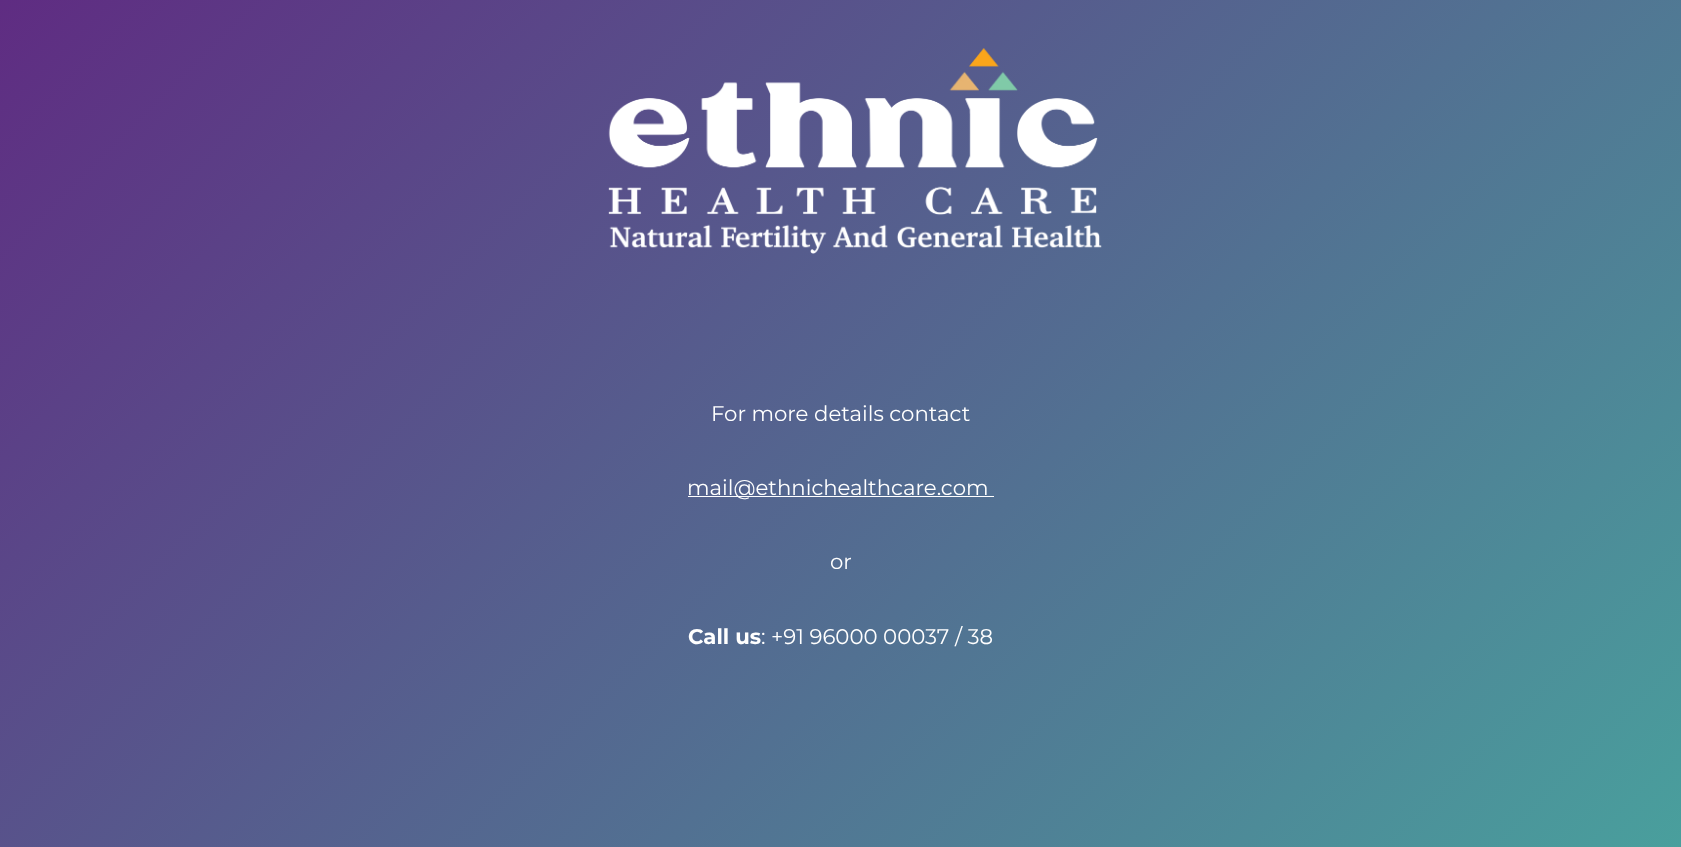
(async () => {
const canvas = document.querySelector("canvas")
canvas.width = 1681
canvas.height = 847
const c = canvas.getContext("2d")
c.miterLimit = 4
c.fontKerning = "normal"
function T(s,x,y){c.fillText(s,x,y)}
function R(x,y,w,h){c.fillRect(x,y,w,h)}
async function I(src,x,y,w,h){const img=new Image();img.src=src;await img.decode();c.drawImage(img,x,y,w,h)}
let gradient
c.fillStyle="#fff"
R(0,0,1681,847)
gradient = c.createLinearGradient(204,-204,1477,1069)
gradient.addColorStop(0,"#5f2c82")
gradient.addColorStop(1,"#49a09d")
c.fillStyle = gradient
R(0,0,1681,847)
await I("1.png",608,48,494,206)
c.font="100 21.25px Montserrat"
c.fillStyle="#fff"
T("For more details contact",711,421)
R(688,496,306,1)
T("mail@ethnichealthcare.com",687,495)
T("or",830,569)
c.font="100 21.25px 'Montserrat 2'"
T("Call us",688,644)
c.font="100 21.25px Montserrat"
T(": +91 96000 00037 / 38",761,644)
})()
